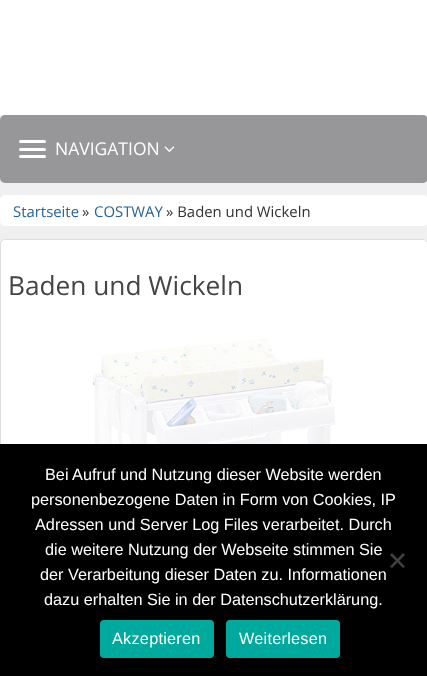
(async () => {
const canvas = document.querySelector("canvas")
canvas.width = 427
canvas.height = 676
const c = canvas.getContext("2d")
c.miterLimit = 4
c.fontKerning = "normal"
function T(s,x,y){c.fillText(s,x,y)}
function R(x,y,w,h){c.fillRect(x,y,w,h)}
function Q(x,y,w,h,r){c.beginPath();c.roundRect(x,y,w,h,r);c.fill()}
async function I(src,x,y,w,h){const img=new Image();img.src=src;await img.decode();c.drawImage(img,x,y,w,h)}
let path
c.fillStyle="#f1f0f0"
R(0,0,427,676)
c.fillStyle="#fff"
R(0,0,427,115)
c.fillStyle="#979799"
Q(0,115,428,68,5)
c.fillStyle="#fff"
Q(19,140,27,3,1.5)
Q(19,148,27,3,1.5)
Q(19,155,27,3,1.5)
c.font="17.5px Open Sans"
T("NAVIGATION",55,155)
await I("1.png",164,146,11,6)
Q(0,195,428,31,5)
c.font="14.9px Open Sans"
c.fillStyle="#2a6496"
T("Startseite",13,217)
c.fillStyle="#333"
T("»",82,217)
c.fillStyle="#2a6496"
T("COSTWAY",94,217)
c.fillStyle="#333"
T("» Baden und Wickeln",166,217)
c.fillStyle="#fff"
c.beginPath()
c.roundRect(.5,239.5,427,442,4.5)
c.fill()
c.strokeStyle="#ddd"
c.stroke()
c.font="26.25px Open Sans"
c.fillStyle="#444"
T("Baden und Wickeln",8,295)
await I("2.png",82,339,254,105)
c.fillStyle="#000"
R(0,444,427,232)
c.font="16.25px Liberation Sans"
c.fillStyle="#fff"
T("Bei Aufruf und Nutzung dieser Website werden",45,480)
T("personenbezogene Daten in Form von Cookies, IP",31,505)
T("Adressen und Server Log Files verarbeitet. Durch",35,530)
T("die weitere Nutzung der Webseite stimmen Sie",45,555)
T("der Verarbeitung dieser Daten zu. Informationen",40,580)
T("dazu erhalten Sie in der Datenschutzerklärung.",44,605)
c.fillStyle="#404040"
path = new Path2D("M403 553l2 2l-13 13l-2-1.5z")
c.fill(path)
path = new Path2D("M390 555l2-2l13 13.5l-2 1.5z")
c.fill(path)
c.fillStyle="#00a99d"
Q(100,620,114,38,4)
c.letterSpacing="0.25px"
c.fillStyle="#fff"
T("Akzeptieren",112,644)
c.fillStyle="#00a99d"
Q(226,620,114,38,4)
c.fillStyle="#fff"
T("Weiterlesen",239,644)
})()
